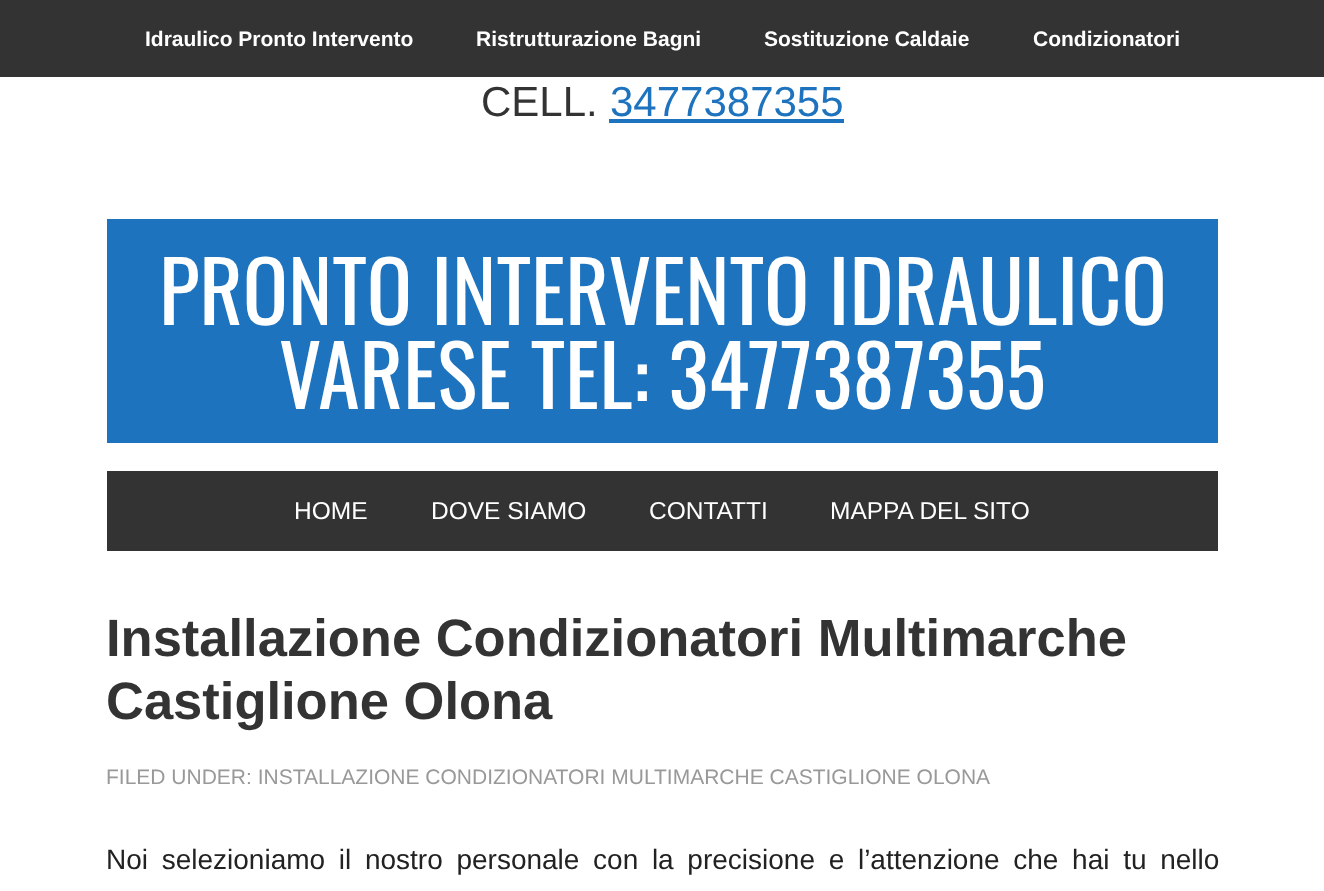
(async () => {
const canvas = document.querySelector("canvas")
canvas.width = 1324
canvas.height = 891
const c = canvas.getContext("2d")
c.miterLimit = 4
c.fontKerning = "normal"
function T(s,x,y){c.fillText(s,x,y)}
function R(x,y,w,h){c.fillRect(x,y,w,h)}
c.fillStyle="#fff"
R(0,0,1324,891)
c.fillStyle="#333"
R(0,0,1324,77)
c.font="bold 21px Liberation Sans"
c.fillStyle="#fff"
T("Idraulico Pronto Intervento",145,46)
T("Ristrutturazione Bagni",476,46)
T("Sostituzione Caldaie",764,46)
T("Condizionatori",1033,46)
c.font="42px Liberation Sans"
c.fillStyle="#333"
T("CELL.",481,116)
c.fillStyle="#1e73be"
T("3477387355",610,116)
R(609,119,235,4)
R(107,219,1111,224)
c.font="84px Oswald"
c.fillStyle="#fff"
T("PRONTO INTERVENTO IDRAULICO",159,325)
T("VARESE TEL: 3477387355",279,409)
c.fillStyle="#333"
R(107,471,1111,80)
c.font="24.5px Liberation Sans"
c.fillStyle="#fff"
T("HOME",294,519)
T("DOVE SIAMO",431,519)
T("CONTATTI",649,519)
T("MAPPA DEL SITO",830,519)
c.font="bold 52.5px Liberation Sans"
c.fillStyle="#333"
T("Installazione Condizionatori Multimarche",106,656)
T("Castiglione Olona",106,719)
c.font="21px Liberation Sans"
c.fillStyle="#999"
T("FILED UNDER: INSTALLAZIONE CONDIZIONATORI MULTIMARCHE CASTIGLIONE OLONA",106,784)
c.wordSpacing="5.9px"
c.font="28px Liberation Sans"
c.fillStyle="#222"
T("Noi selezioniamo il nostro personale con la precisione e l’attenzione che hai tu nello",106,869)
})()
